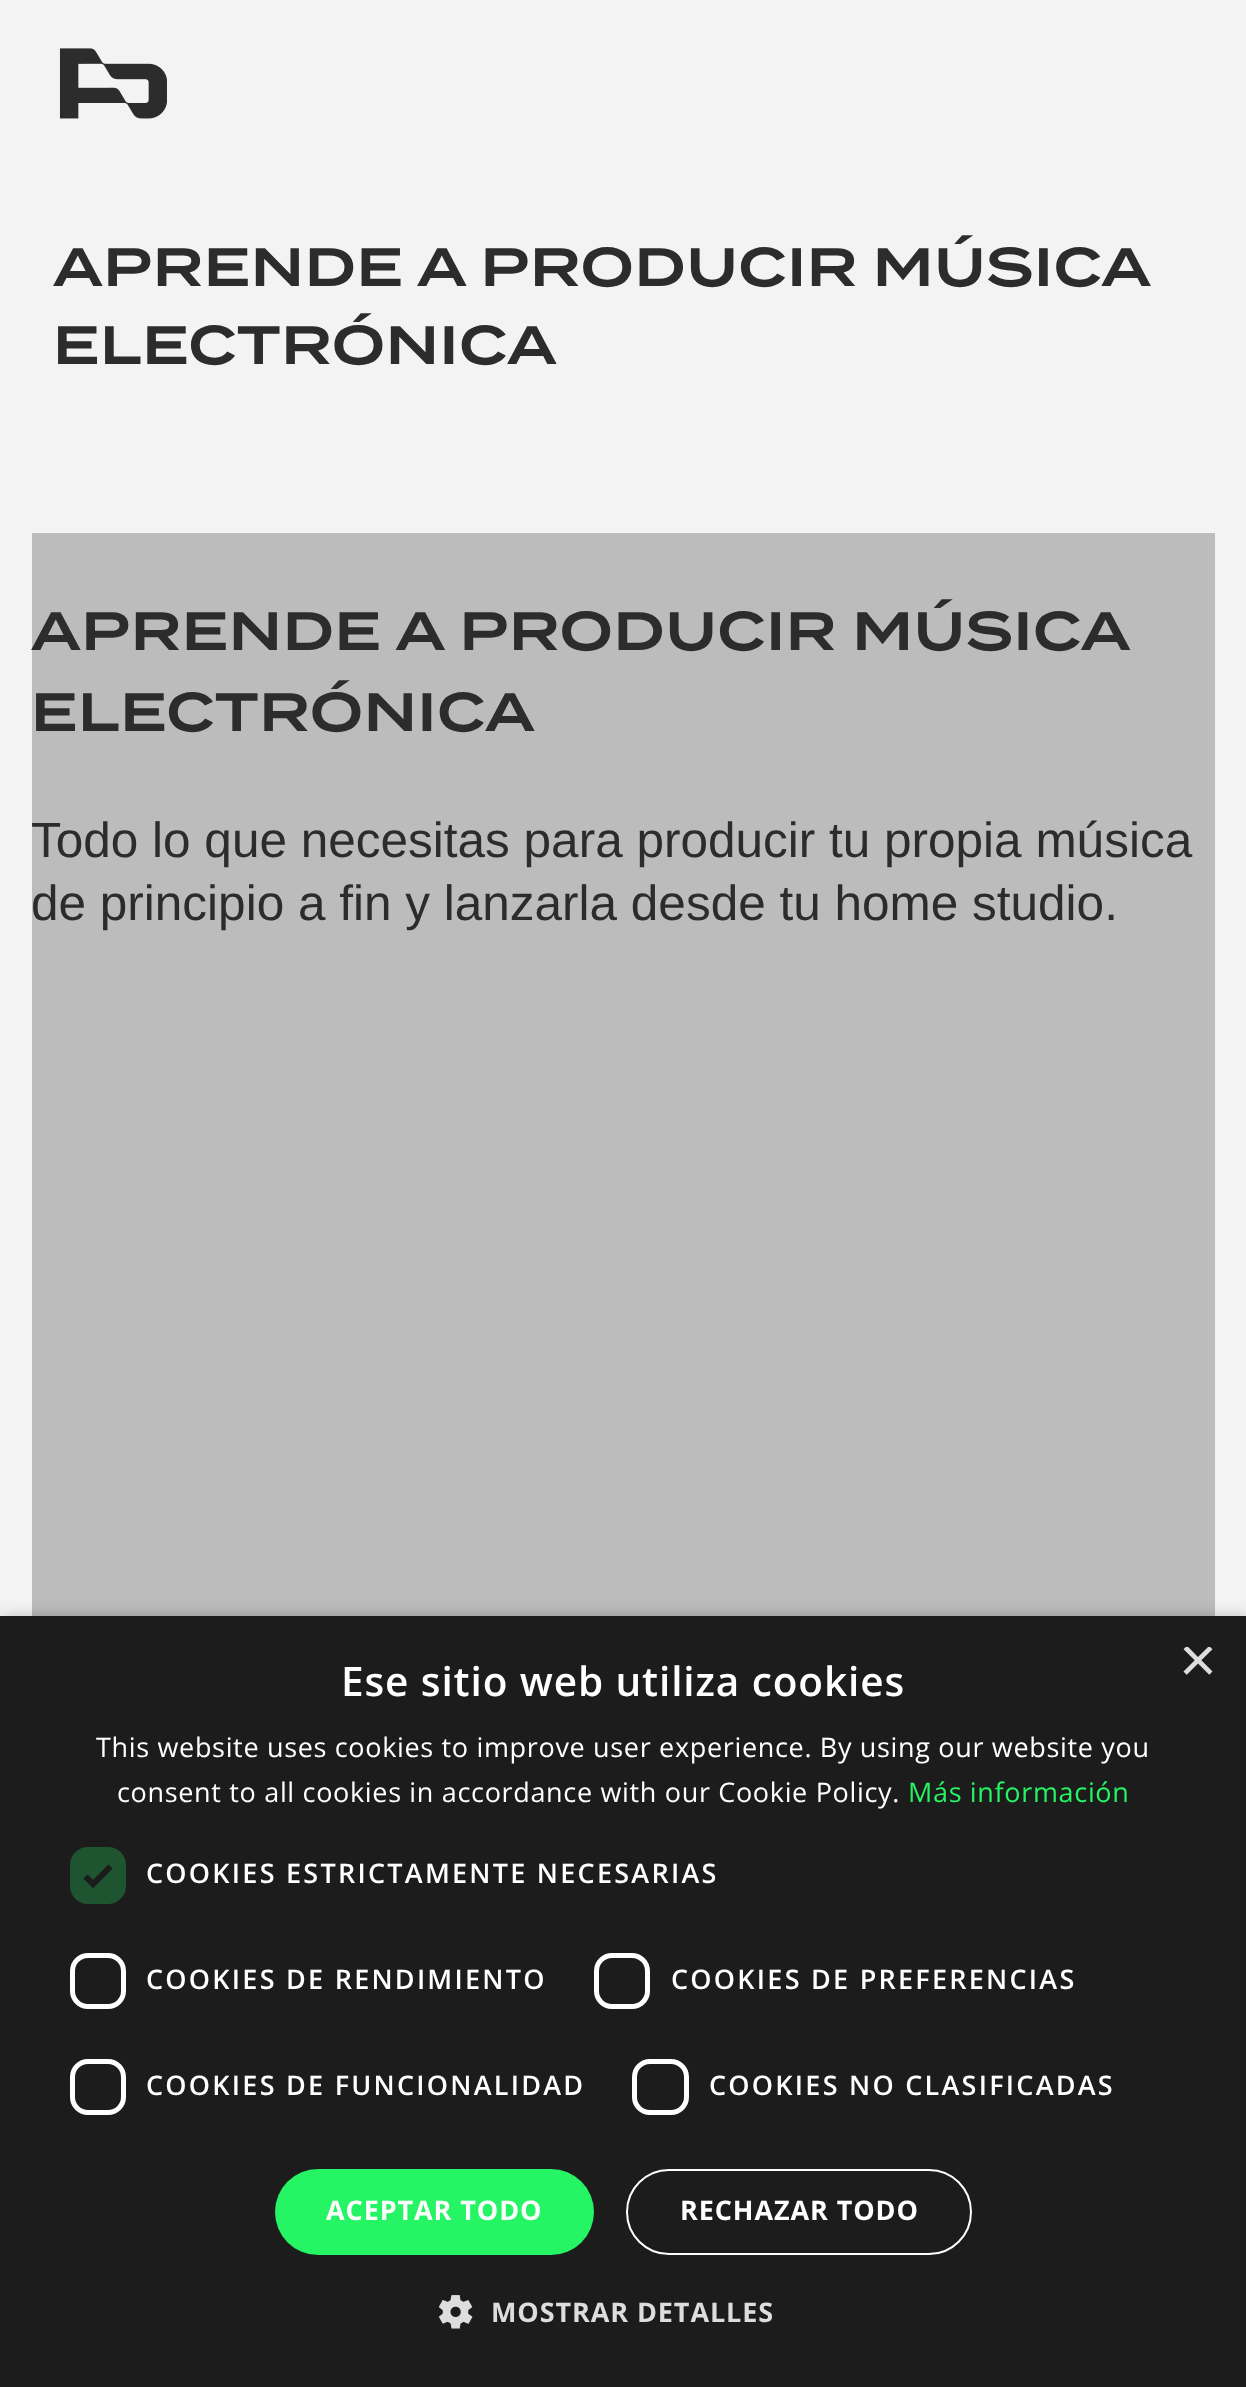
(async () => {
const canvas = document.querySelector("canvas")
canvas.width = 1246
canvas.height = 2387
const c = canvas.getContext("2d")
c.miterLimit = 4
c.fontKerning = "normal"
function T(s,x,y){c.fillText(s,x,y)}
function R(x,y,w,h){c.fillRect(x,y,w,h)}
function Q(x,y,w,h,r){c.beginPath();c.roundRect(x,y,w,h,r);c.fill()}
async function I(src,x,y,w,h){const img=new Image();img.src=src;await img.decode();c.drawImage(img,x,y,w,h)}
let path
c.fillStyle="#f3f3f3"
R(0,0,1246,2387)
await I("1.png",59,48,108,71)
c.letterSpacing="0.67px"
c.wordSpacing="-0.5px"
c.font="600 54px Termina"
c.fillStyle="#2c2c2c"
T("APRENDE A PRODUCIR MÚSICA",53,286)
c.wordSpacing="0px"
T("ELECTRÓNICA",53,364)
c.fillStyle="#bcbcbc"
R(32,533,1183,1083)
c.fillStyle="#2c2c2c"
T("APRENDE A PRODUCIR MÚSICA",31,650)
T("ELECTRÓNICA",31,731)
c.letterSpacing="0px"
c.font="49.5px Liberation Sans"
T("Todo lo que necesitas para producir tu propia música",31,857)
T("de principio a fin y lanzarla desde tu home studio.",31,920)
c.fillStyle="#00000059"
c.filter="blur(9px)"
c.beginPath()
c.rect(2,1620,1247,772)
c.fill()
c.filter="none"
c.fillStyle="#1c1c1c"
R(0,1616,1246,771)
c.save()
c.beginPath()
c.rect(1179,1647,34,34)
c.clip()
c.font="65px Liberation Sans"
c.fillStyle="#ddd"
T("×",1179,1682)
c.restore()
c.letterSpacing="0.9px"
c.font="600 40.5px Open Sans"
c.fillStyle="#fff"
T("Ese sitio web utiliza cookies",341,1696)
c.letterSpacing="0.67px"
c.font="27px Open Sans"
T("This website uses cookies to improve user experience. By using our website you",96,1757)
T("consent to all cookies in accordance with our Cookie Policy.",117,1802)
c.fillStyle="#25f464"
T("Más información",908,1802)
c.fillStyle="#1e542f"
Q(70,1847,56,57,18)
path = new Path2D("M85.5 1876.5l7.5 7.5l17.5-17.5")
c.strokeStyle="#1c1c1c"
c.lineWidth=5.9
c.stroke(path)
c.letterSpacing="2.25px"
c.font="600 27px Open Sans"
c.fillStyle="#fff"
T("COOKIES ESTRICTAMENTE NECESARIAS",146,1883)
c.beginPath()
c.roundRect(72.5,1955.5,51,51,15.5)
c.strokeStyle="#fff"
c.lineWidth=5
c.stroke()
T("COOKIES DE RENDIMIENTO",146,1989)
c.beginPath()
c.roundRect(596.5,1955.5,51,51,15.5)
c.stroke()
T("COOKIES DE PREFERENCIAS",671,1989)
c.beginPath()
c.roundRect(72.5,2061.5,51,51,15.5)
c.stroke()
T("COOKIES DE FUNCIONALIDAD",146,2095)
c.beginPath()
c.roundRect(634.5,2061.5,52,51,15.5)
c.stroke()
T("COOKIES NO CLASIFICADAS",709,2095)
c.fillStyle="#25f464"
Q(275,2169,319,86,43)
c.letterSpacing="0.9px"
c.font="bold 27px Open Sans"
c.fillStyle="#fff"
T("ACEPTAR TODO",326,2220)
c.beginPath()
c.roundRect(627,2170,344,84,42)
c.lineWidth=2
c.stroke()
T("RECHAZAR TODO",680,2220)
await I("2.png",439,2295,34,34)
c.fillStyle="#ddd"
T("MOSTRAR DETALLES",491,2322)
})()
